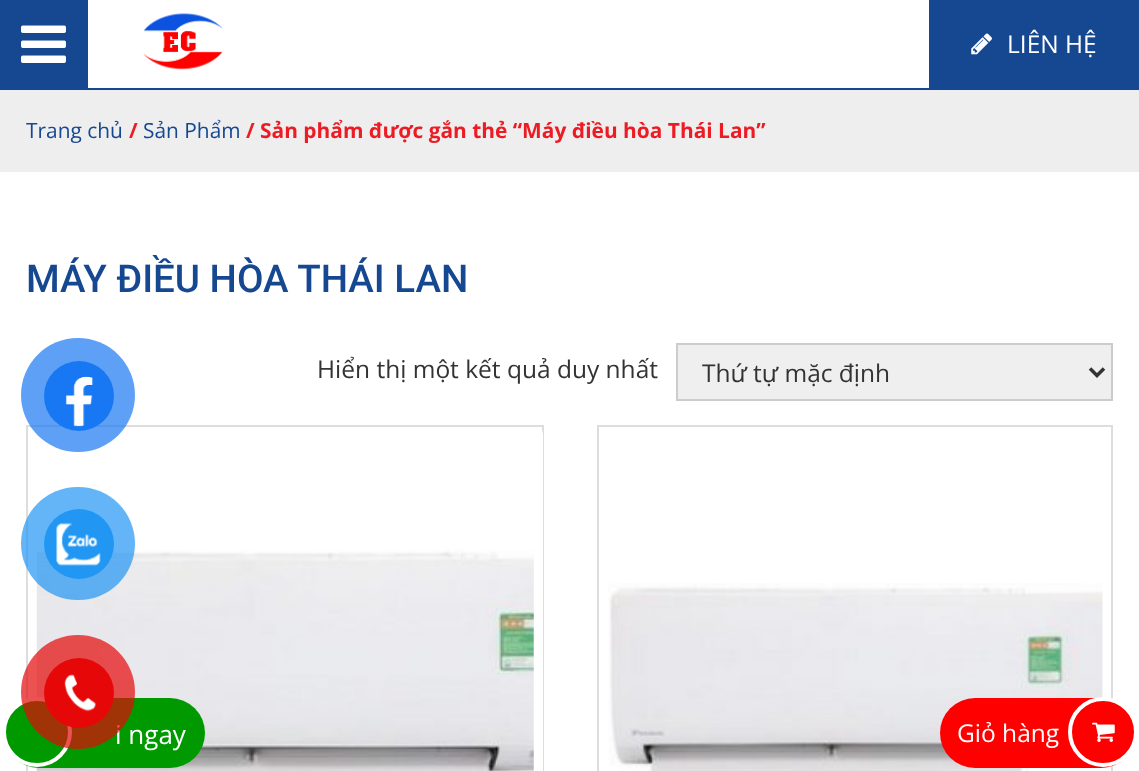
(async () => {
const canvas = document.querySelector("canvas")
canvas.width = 1139
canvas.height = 771
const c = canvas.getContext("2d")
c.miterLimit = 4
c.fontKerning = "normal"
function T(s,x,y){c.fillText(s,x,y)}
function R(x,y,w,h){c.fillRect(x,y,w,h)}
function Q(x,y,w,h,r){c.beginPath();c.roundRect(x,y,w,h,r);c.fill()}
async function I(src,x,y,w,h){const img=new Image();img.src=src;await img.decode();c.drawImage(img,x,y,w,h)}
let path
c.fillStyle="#fff"
R(0,0,1139,771)
c.fillStyle="#164892"
R(0,88,1139,2)
R(0,0,88,88)
await I("1.png",21,25,45,38)
await I("2.png",143,13,80,57)
R(929,0,210,88)
await I("3.png",971,33,21,22)
c.font="24.5px Open Sans"
c.fillStyle="#fff"
T("LIÊN HỆ",1007,53)
c.fillStyle="#eee"
R(0,90,1139,82)
c.font="20.9px Open Sans"
c.fillStyle="#164892"
T("Trang chủ",26,138)
c.font="bold 20.9px Open Sans"
c.fillStyle="#ed1c24"
T("/",129,138)
c.font="20.9px Open Sans"
c.fillStyle="#164892"
T("Sản Phẩm",143,138)
c.font="bold 20.9px Open Sans"
c.fillStyle="#ed1c24"
T("/ Sản phẩm được gắn thẻ “Máy điều hòa Thái Lan”",246,138)
c.font="500 38.5px Roboto"
c.fillStyle="#164892"
T("MÁY ĐIỀU HÒA THÁI LAN",26,292)
c.font="24.5px Open Sans"
c.fillStyle="#333"
T("Hiển thị một kết quả duy nhất",317,378)
c.fillStyle="#efefef"
c.beginPath()
c.rect(677,344,435,56)
c.fill()
c.strokeStyle="#ccc"
c.lineWidth=2
c.stroke()
path = new Path2D("M1090 368.5l7 7l7-7")
c.strokeStyle="#333"
c.lineWidth=3.5
c.stroke(path)
c.fillStyle="#333"
T("Thứ tự mặc định",702,382)
c.strokeStyle="#ddd"
c.lineWidth=2
c.strokeRect(27,426,516,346)
c.fillStyle="#fff"
Q(28,427,515,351,7)
await I("4.png",36,549,498,222)
c.strokeRect(598,426,514,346)
await I("5.png",608,583,495,188)
c.fillStyle="#1877f2b3"
c.beginPath()
c.arc(78,395,57,0,7)
c.fill()
c.fillStyle="#1877f2"
c.beginPath()
c.arc(79,396,35,0,7)
c.fill()
await I("6.png",65,376,29,51)
c.fillStyle="#2196f3b3"
Q(21,487,114,113,56.5)
c.fillStyle="#2196f3"
c.beginPath()
c.arc(79,544,35,0,7)
c.fill()
await I("7.png",56,522,45,44)
c.fillStyle="#090"
Q(4,698,201,70,35)
c.beginPath()
c.arc(37,732,33,0,7)
c.fill()
c.strokeStyle="#fff"
c.lineWidth=4
c.stroke()
c.font="26px Open Sans"
c.fillStyle="#fff"
T("i ngay",115,744)
c.fillStyle="#e60808b3"
c.beginPath()
c.arc(78,692,57,0,7)
c.fill()
c.fillStyle="#e60808"
c.beginPath()
c.arc(79,693,35,0,7)
c.fill()
await I("8.png",64,674,32,38)
c.fillStyle="#f00"
Q(940,698,196,70,35)
c.font="24.5px Open Sans"
c.fillStyle="#fff"
T("Giỏ hàng",957,742)
c.fillStyle="#f00"
c.beginPath()
c.arc(1103,732,33,0,7)
c.fill()
c.stroke()
await I("9.png",1092,722,23,20)
})()
